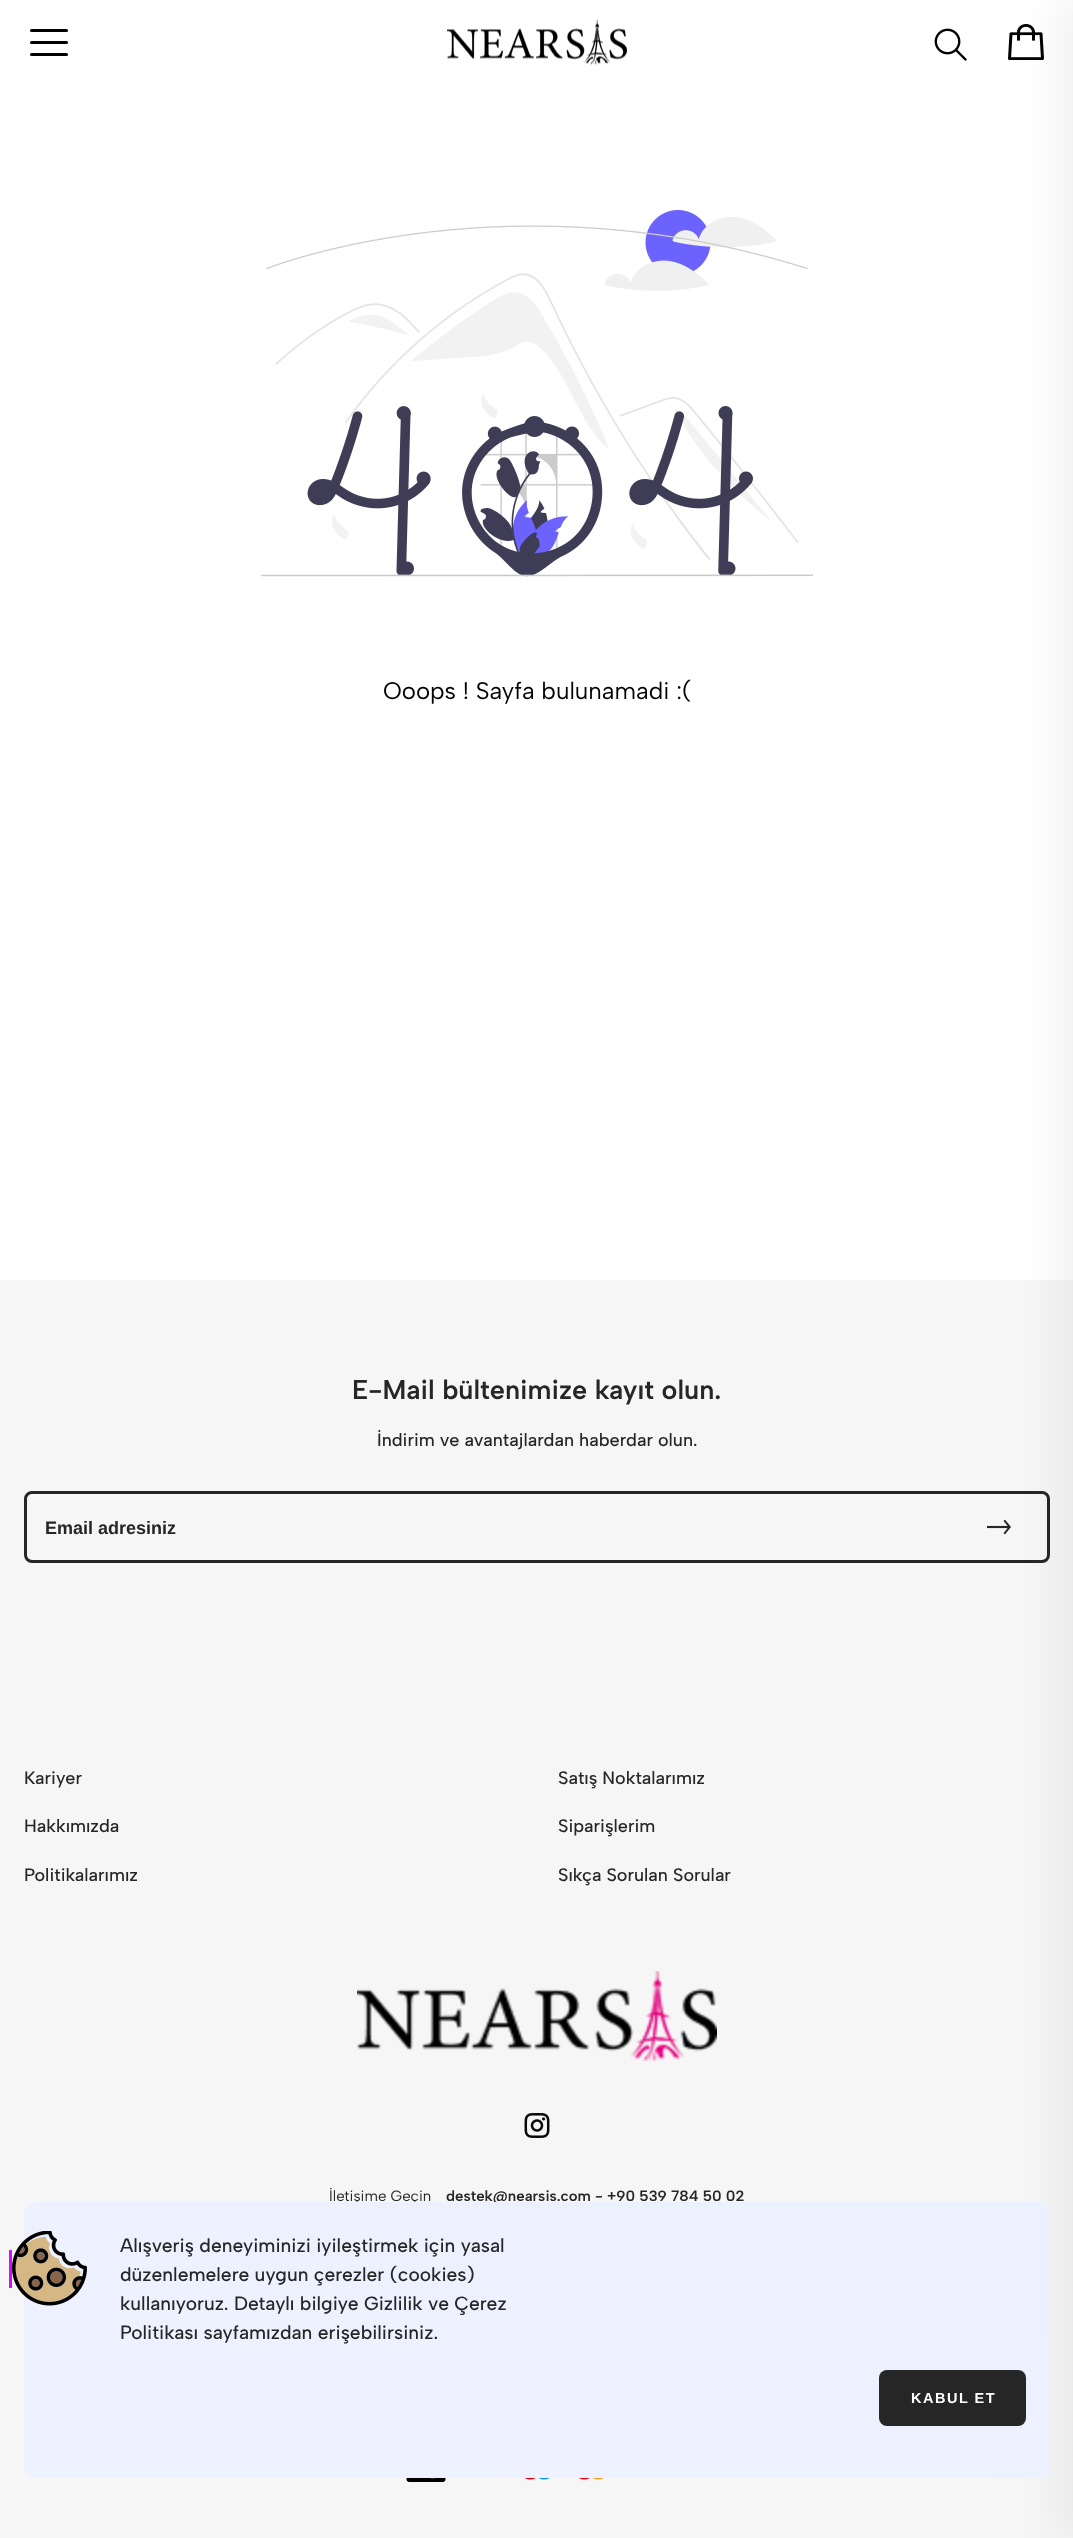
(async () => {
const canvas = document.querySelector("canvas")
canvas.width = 1073
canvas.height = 2538
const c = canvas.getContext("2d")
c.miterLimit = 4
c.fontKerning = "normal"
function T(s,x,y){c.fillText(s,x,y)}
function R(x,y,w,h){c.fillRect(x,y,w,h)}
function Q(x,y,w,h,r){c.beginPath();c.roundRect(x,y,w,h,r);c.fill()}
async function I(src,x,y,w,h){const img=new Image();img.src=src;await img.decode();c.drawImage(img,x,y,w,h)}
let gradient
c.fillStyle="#fff"
R(0,0,1073,2538)
await I("1.png",261,210,552,367)
c.font="24px Albert Sans"
c.fillStyle="#000"
T("Ooops ! Sayfa bulunamadi :(",383,699)
await I("4.png",1008,24,36,36)
c.fillStyle="#f6f6f6"
R(0,1280,1073,1258)
c.beginPath()
c.roundRect(25.5,1492.5,1023,69,6.5)
c.strokeStyle="#262626"
c.lineWidth=3
c.stroke()
await I("6.png",987,1520,24,15)
c.fillStyle="#0000000d"
c.filter="blur(19px)"
c.beginPath()
c.rect(1056,0,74,2538)
c.fill()
c.filter="none"
c.fillStyle="#000"
Q(30,29,38,3,1.5)
Q(30,41,38,3,1.5)
Q(30,53,38,3,1.5)
await I("2.png",447,19,180,46)
await I("3.png",934,28,33,33)
c.font="15px Albert Sans"
c.fillStyle="#262626"
T("İletişime Geçin",329,2201)
c.font="600 15px Albert Sans"
T("destek@nearsis.com - +90 539 784 50 02",446,2201)
gradient = c.createLinearGradient(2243,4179,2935,1605)
gradient.addColorStop(0,"#f3f1ff")
gradient.addColorStop(.99,"#e8f1ff")
c.fillStyle = gradient
Q(24,2202,1026,276,12)
c.fillStyle="#ce10f8"
R(9,2250,3,38)
await I("5.png",12,2231,75,75)
c.font="500 19.2px Albert Sans"
c.fillStyle="#262626"
T("Alışveriş deneyiminizi iyileştirmek için yasal",120,2252)
T("düzenlemelere uygun çerezler (cookies)",120,2281)
T("kullanıyoruz. Detaylı bilgiye Gizlilik ve Çerez",120,2310)
T("Politikası sayfamızdan erişebilirsiniz.",120,2339)
Q(879,2370,147,56,8)
c.letterSpacing="1.5px"
c.font="bold 14.5px Liberation Sans"
c.fillStyle="#fff"
T("KABUL ET",911,2403)
c.letterSpacing="0px"
c.font="600 27px Albert Sans"
c.fillStyle="#262626"
T("E-Mail bültenimize kayıt olun.",352,1399)
c.font="500 18px Albert Sans"
T("İndirim ve avantajlardan haberdar olun.",377,1446)
c.font="bold 18px Liberation Sans"
T("Email adresiniz",45,1534)
c.font="500 18px Albert Sans"
T("Kariyer",24,1784)
T("Hakkımızda",24,1832)
T("Politikalarımız",24,1881)
T("Satış Noktalarımız",558,1784)
T("Siparişlerim",558,1832)
T("Sıkça Sorulan Sorular",558,1881)
await I("7.png",357,1971,360,90)
await I("8.png",524,2113,26,25)
await I("9.png",406,2478,40,4)
await I("10.png",524,2478,26,2)
await I("11.png",578,2478,26,2)
})()
